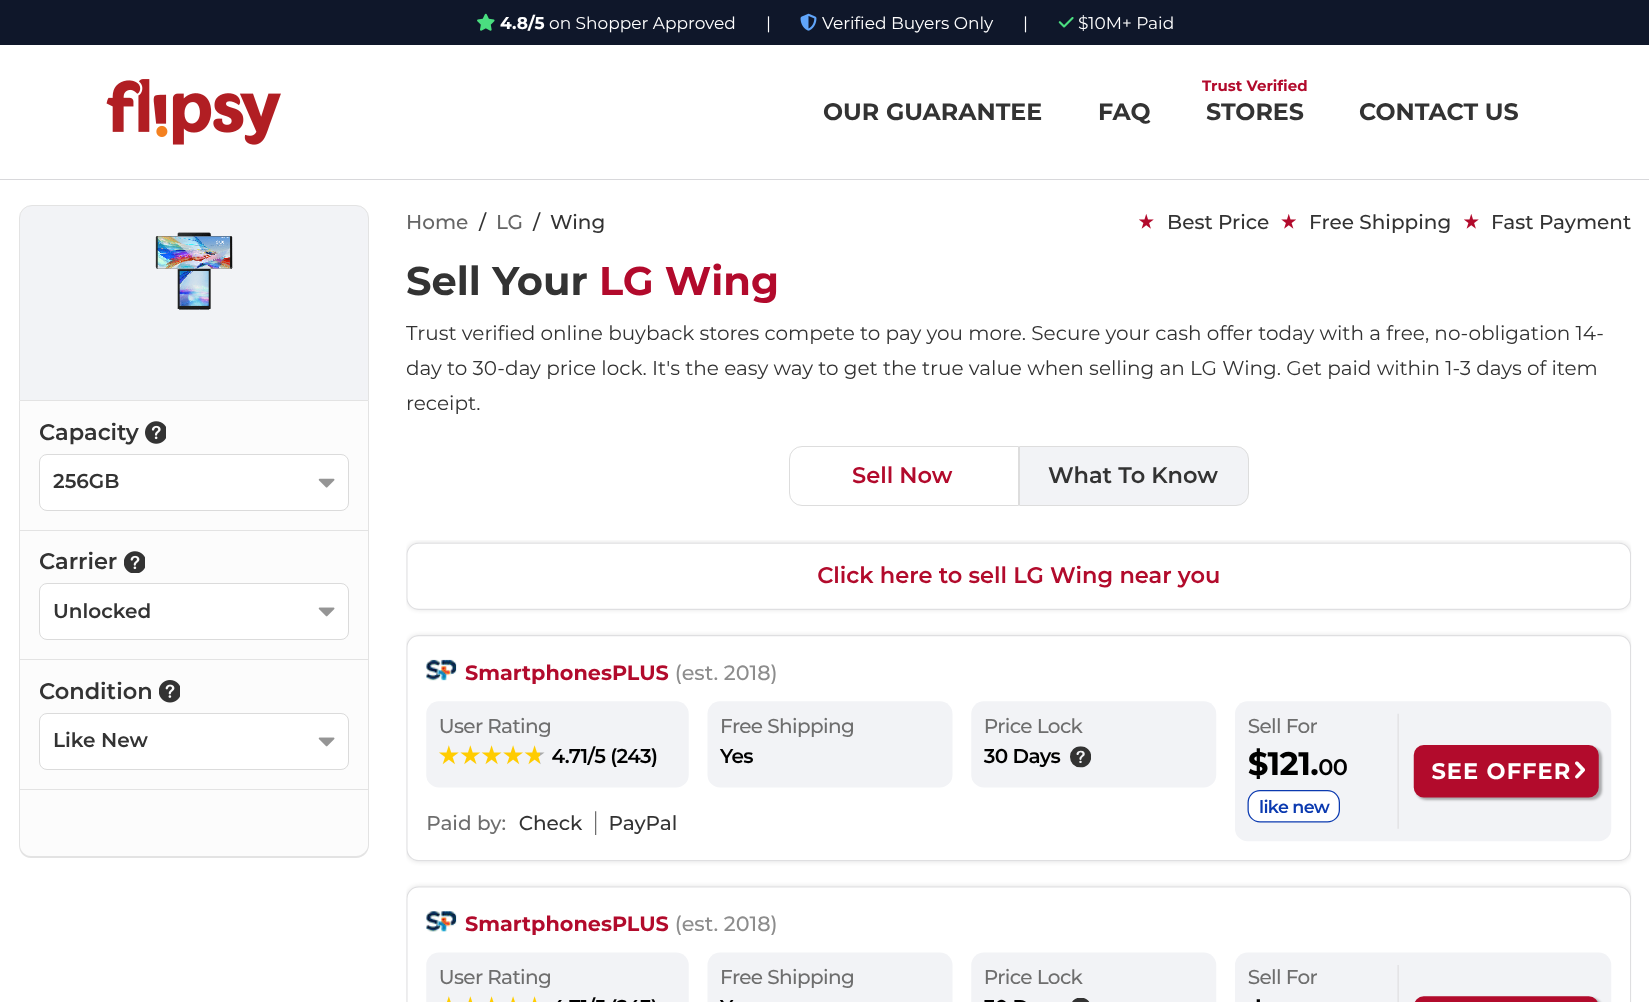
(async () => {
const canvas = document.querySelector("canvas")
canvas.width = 1649
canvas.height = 1002
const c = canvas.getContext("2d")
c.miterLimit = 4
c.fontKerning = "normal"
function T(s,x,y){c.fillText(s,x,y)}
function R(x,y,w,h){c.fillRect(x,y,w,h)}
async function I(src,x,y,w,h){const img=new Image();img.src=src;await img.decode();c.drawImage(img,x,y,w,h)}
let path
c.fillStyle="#fff"
R(0,0,1649,1002)
c.fillStyle="#0f172a"
R(0,0,1649,45)
await I("1.png",477,13,18,18)
c.font="bold 17px Montserrat"
c.fillStyle="#fff"
T("4.8/5",500,29)
c.font="17px Montserrat"
T("on Shopper Approved",549,29)
T("|",766,29)
await I("2.png",800,13,17,18)
T("Verified Buyers Only",822,29)
T("|",1023,29)
await I("3.png",1058,17,16,11)
T("$10M+ Paid",1078,29)
c.fillStyle="#d8d8db"
R(0,179,1649,1)
await I("4.png",106,79,175,66)
c.font="bold 23.75px Montserrat"
c.fillStyle="#333"
T("OUR GUARANTEE",823,120)
T("FAQ",1098,120)
c.font="bold 15px Montserrat"
c.fillStyle="#b20a2c"
T("Trust Verified",1202,91)
c.font="bold 23.75px Montserrat"
c.fillStyle="#333"
T("STORES",1206,120)
T("CONTACT US",1359,120)
c.font="500 20px Montserrat"
c.fillStyle="#666"
T("Home",406,229)
c.fillStyle="#333"
T("/",479,229)
c.fillStyle="#666"
T("LG",496,229)
c.fillStyle="#333"
T("/",533,229)
T("Wing",550,229)
await I("5.png",1139,214,15,15)
T("Best Price",1167,229)
await I("6.png",1281,214,15,15)
T("Free Shipping",1309,229)
await I("5.png",1464,214,15,15)
T("Fast Payment",1491,229)
c.font="bold 40px Montserrat"
T("Sell Your",406,295)
c.fillStyle="#b20a2c"
T("LG Wing",599,295)
c.font="20px Montserrat"
c.fillStyle="#333"
T("Trust verified online buyback stores compete to pay you more. Secure your cash offer today with a free, no-obligation 14-",406,340)
T("day to 30-day price lock. It's the easy way to get the true value when selling an LG Wing. Get paid within 1-3 days of item",406,375)
T("receipt.",406,410)
c.beginPath()
c.roundRect(789.5,446.5,229,59,[12.5,0,0,12.5])
c.strokeStyle="#ddd"
c.stroke()
c.font="600 22.5px Montserrat"
c.fillStyle="#b20a2c"
T("Sell Now",852,483)
c.fillStyle="#f2f3f6"
c.beginPath()
c.roundRect(1019.5,446.5,229,59,[0,12.5,12.5,0])
c.fill()
c.stroke()
c.fillStyle="#333"
T("What To Know",1048,483)
c.fillStyle="#f2f3f6"
c.beginPath()
c.roundRect(19.5,205.5,349,195,[12.5,12.5,0,0])
c.fill()
c.strokeStyle="#e3e3e3"
c.stroke()
await I("7.png",155,232,78,78)
c.fillStyle="#fcfcfc"
c.beginPath()
c.roundRect(19,401,350,457,[0,0,13,13])
c.fill()
c.fillStyle="#e3e3e3"
path = new Path2D("M19 401h350v444c0 7-6 13-13 13h-325c-7 0-12-6-12-13zm1 0h348v444c0 6-6 11-12 11h-325c-6 0-11-5-11-11z")
c.fill(path,"evenodd")
R(20,530,348,1)
c.fillStyle="#333"
T("Capacity",39,440)
await I("8.png",145,421,21,23)
c.fillStyle="#fff"
c.beginPath()
c.roundRect(39.5,454.5,309,56,7.5)
c.fill()
c.strokeStyle="#dbdbdb"
c.stroke()
c.font="600 20px Montserrat"
c.fillStyle="#333"
T("256GB",53,488)
await I("9.png",318,478,17,10)
c.fillStyle="#e3e3e3"
R(20,659,348,1)
c.font="600 22.5px Montserrat"
c.fillStyle="#333"
T("Carrier",39,569)
await I("10.png",124,551,21,22)
c.fillStyle="#fff"
c.beginPath()
c.roundRect(39.5,583.5,309,56,7.5)
c.fill()
c.stroke()
c.font="600 20px Montserrat"
c.fillStyle="#333"
T("Unlocked",53,618)
await I("11.png",318,607,17,10)
c.fillStyle="#e3e3e3"
R(20,789,348,1)
c.font="600 22.5px Montserrat"
c.fillStyle="#333"
T("Condition",39,699)
await I("12.png",159,680,21,23)
c.fillStyle="#fff"
c.beginPath()
c.roundRect(39.5,713.5,309,56,7.5)
c.fill()
c.stroke()
c.font="600 20px Montserrat"
c.fillStyle="#333"
T("Like New",53,747)
await I("11.png",318,737,17,10)
await I("13.png",406,540,1226,462)
})()
